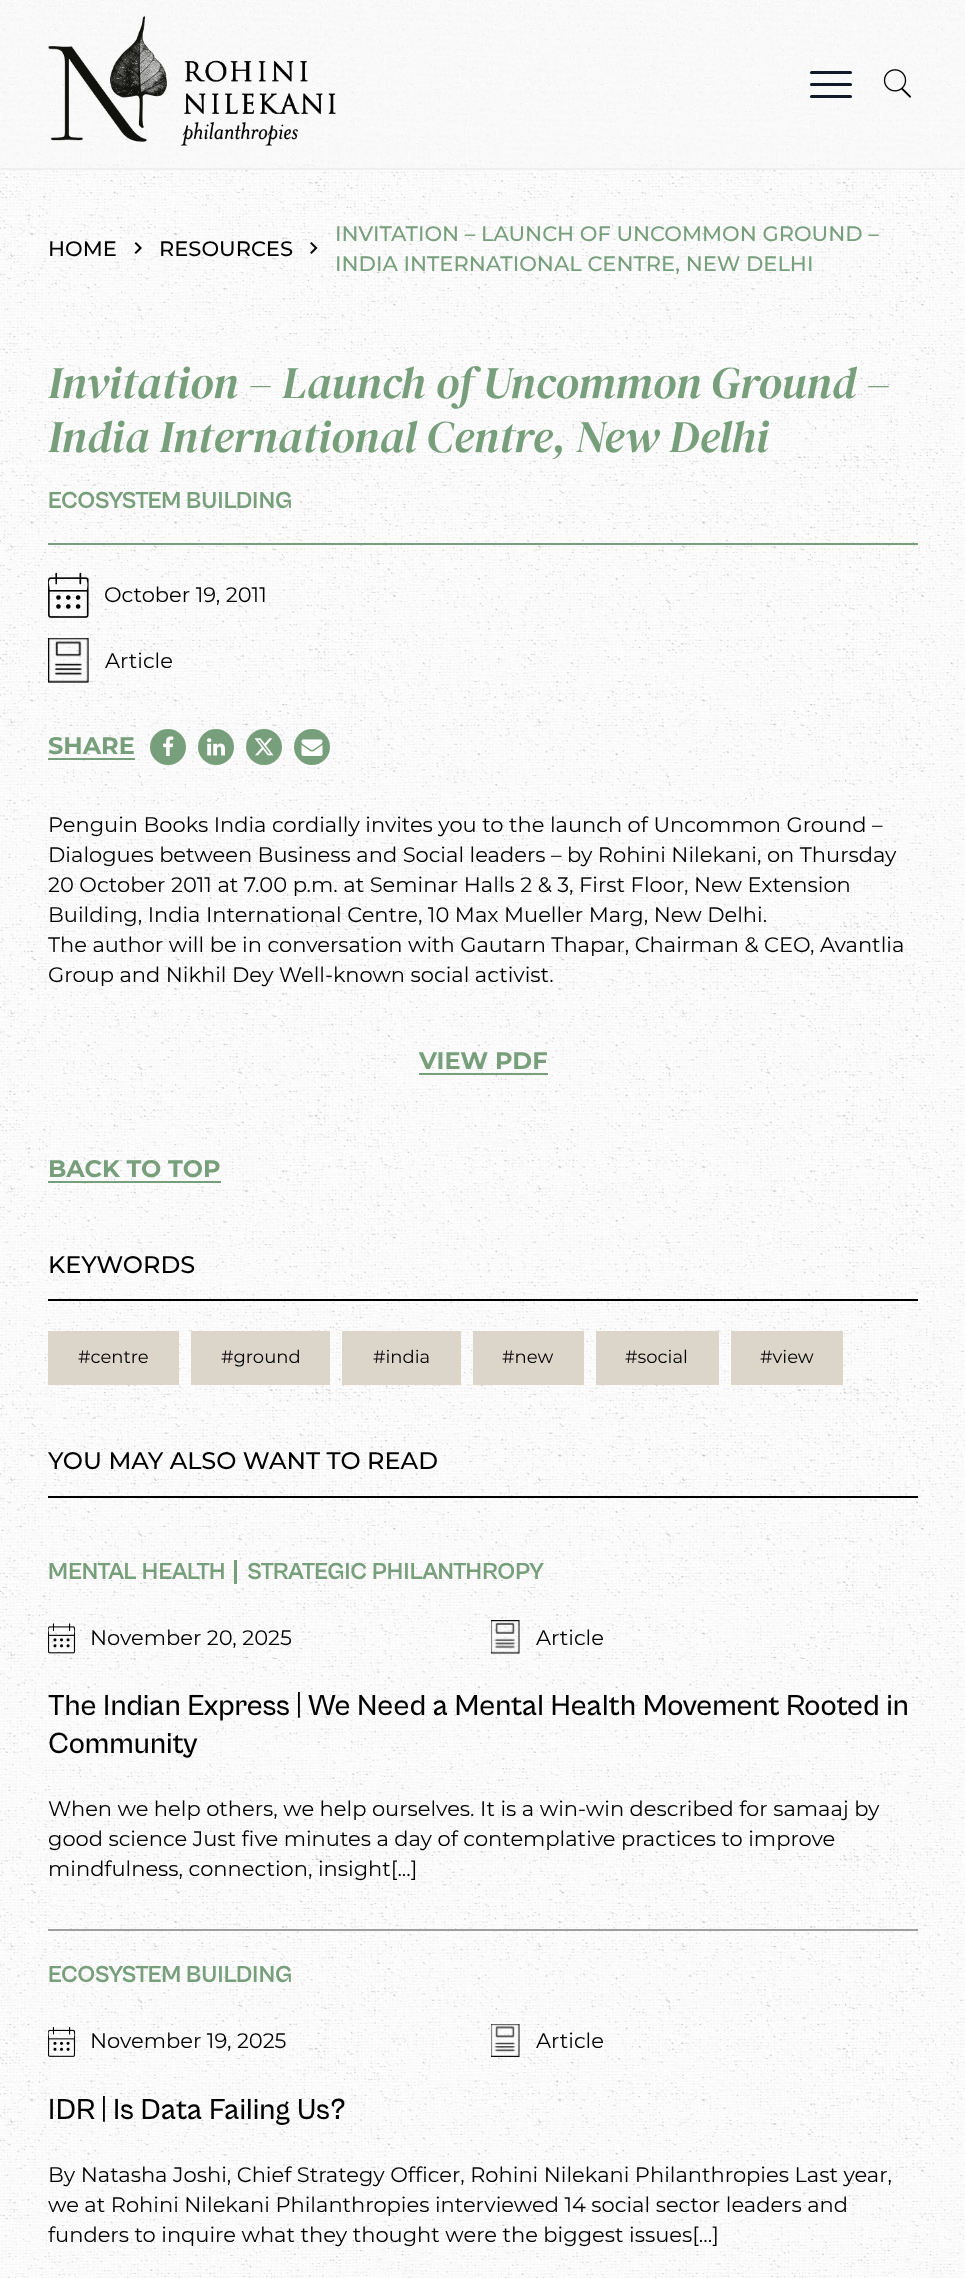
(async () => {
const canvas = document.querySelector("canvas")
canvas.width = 965
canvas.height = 2278
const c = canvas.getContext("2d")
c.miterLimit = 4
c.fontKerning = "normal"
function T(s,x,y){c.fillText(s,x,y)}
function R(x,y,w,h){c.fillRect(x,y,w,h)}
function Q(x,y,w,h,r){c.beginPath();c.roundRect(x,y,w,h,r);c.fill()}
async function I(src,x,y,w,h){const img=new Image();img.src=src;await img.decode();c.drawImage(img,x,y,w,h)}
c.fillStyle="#fff"
R(0,0,965,2278)
await I("1.png",0,170,965,2108)
await I("2.png",0,0,965,168)
c.fillStyle="#efefef"
R(0,168,965,2)
await I("3.png",48,16,288,130)
c.fillStyle="#111827"
Q(810,95,42,3,1.5)
Q(810,71,42,3,1.5)
Q(810,83,42,3,1.5)
await I("4.png",883,69,28,29)
c.font="500 21px Montserrat"
c.fillStyle="#000"
T("HOME",48,256)
await I("5.png",134,242,8,12)
T("RESOURCES",159,256)
await I("6.png",310,242,8,12)
c.fillStyle="#789f7b"
T("INVITATION – LAUNCH OF UNCOMMON GROUND –",335,241)
T("INDIA INTERNATIONAL CENTRE, NEW DELHI",335,271)
c.font="italic 45px DM Serif Display"
T("Invitation – Launch of Uncommon Ground –",48,398)
T("India International Centre, New Delhi",48,452)
c.font="bold 24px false"
T("ECOSYSTEM BUILDING",48,508)
R(48,543,870,2)
await I("7.png",48,572,41,46)
c.font="21px Montserrat"
c.fillStyle="#000"
T("October 19, 2011",104,602)
await I("8.png",48,638,41,45)
T("Article",105,668)
c.font="bold 24px Montserrat"
c.fillStyle="#789f7b"
T("SHARE",48,754)
R(48,758,87,2)
c.beginPath()
c.arc(168,747,18,0,7)
c.fill()
await I("9.png",163,736,11,20)
c.beginPath()
c.arc(216,747,18,0,7)
c.fill()
await I("10.png",207,738,18,18)
c.beginPath()
c.arc(264,747,18,0,7)
c.fill()
await I("11.png",254,738,20,18)
c.beginPath()
c.arc(312,747,18,0,7)
c.fill()
await I("12.png",301,739,22,17)
c.font="21px Montserrat"
c.fillStyle="#000"
T("Penguin Books India cordially invites you to the launch of Uncommon Ground –",48,832)
T("Dialogues between Business and Social leaders – by Rohini Nilekani, on Thursday",48,862)
T("20 October 2011 at 7.00 p.m. at Seminar Halls 2 & 3, First Floor, New Extension",48,892)
T("Building, India International Centre, 10 Max Mueller Marg, New Delhi.",48,922)
T("The author will be in conversation with Gautarn Thapar, Chairman & CEO, Avantlia",48,952)
T("Group and Nikhil Dey Well-known social activist.",48,982)
c.font="bold 24px Montserrat"
c.fillStyle="#789f7b"
T("VIEW PDF",419,1069)
R(419,1073,129,2)
T("BACK TO TOP",48,1177)
R(48,1181,173,2)
c.fillStyle="#000"
R(48,1299,870,2)
c.font="500 24px Montserrat"
T("KEYWORDS",48,1273)
c.fillStyle="#dbd5ca"
R(48,1331,131,54)
c.font="18px Montserrat"
c.fillStyle="#000"
T("#centre",78,1363)
c.fillStyle="#dbd5ca"
R(191,1331,139,54)
c.fillStyle="#000"
T("#ground",221,1363)
c.fillStyle="#dbd5ca"
R(342,1331,119,54)
c.fillStyle="#000"
T("#india",373,1363)
c.fillStyle="#dbd5ca"
R(473,1331,111,54)
c.fillStyle="#000"
T("#new",502,1363)
c.fillStyle="#dbd5ca"
R(596,1331,123,54)
c.fillStyle="#000"
T("#social",625,1363)
c.fillStyle="#dbd5ca"
R(731,1331,112,54)
c.fillStyle="#000"
T("#view",760,1363)
R(48,1496,870,2)
c.font="500 24px Montserrat"
T("YOU MAY ALSO WANT TO READ",48,1469)
c.fillStyle="#9f9f9f"
R(48,1929,870,2)
c.fillStyle="#789f7b"
R(234,1560,3,24)
c.font="bold 24px false"
T("MENTAL HEALTH",48,1579)
T("STRATEGIC PHILANTHROPY",247,1579)
await I("13.png",48,1623,28,31)
c.font="21px Montserrat"
c.fillStyle="#000"
T("November 20, 2025",90,1645)
await I("14.png",491,1620,29,34)
T("Article",536,1645)
c.font="500 30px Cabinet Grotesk"
T("The Indian Express | We Need a Mental Health Movement Rooted in",48,1715)
T("Community",48,1753)
c.font="21px Montserrat"
T("When we help others, we help ourselves. It is a win-win described for samaaj by",48,1816)
T("good science Just five minutes a day of contemplative practices to improve",48,1846)
T("mindfulness, connection, insight[...]",48,1876)
c.font="bold 24px false"
c.fillStyle="#789f7b"
T("ECOSYSTEM BUILDING",48,1982)
await I("15.png",48,2026,28,31)
c.font="21px Montserrat"
c.fillStyle="#000"
T("November 19, 2025",90,2048)
await I("16.png",491,2024,29,33)
T("Article",536,2048)
c.font="500 30px Cabinet Grotesk"
T("IDR | Is Data Failing Us?",48,2119)
c.font="21px Montserrat"
T("By Natasha Joshi, Chief Strategy Officer, Rohini Nilekani Philanthropies Last year,",48,2182)
T("we at Rohini Nilekani Philanthropies interviewed 14 social sector leaders and",48,2212)
T("funders to inquire what they thought were the biggest issues[...]",48,2242)
})()
